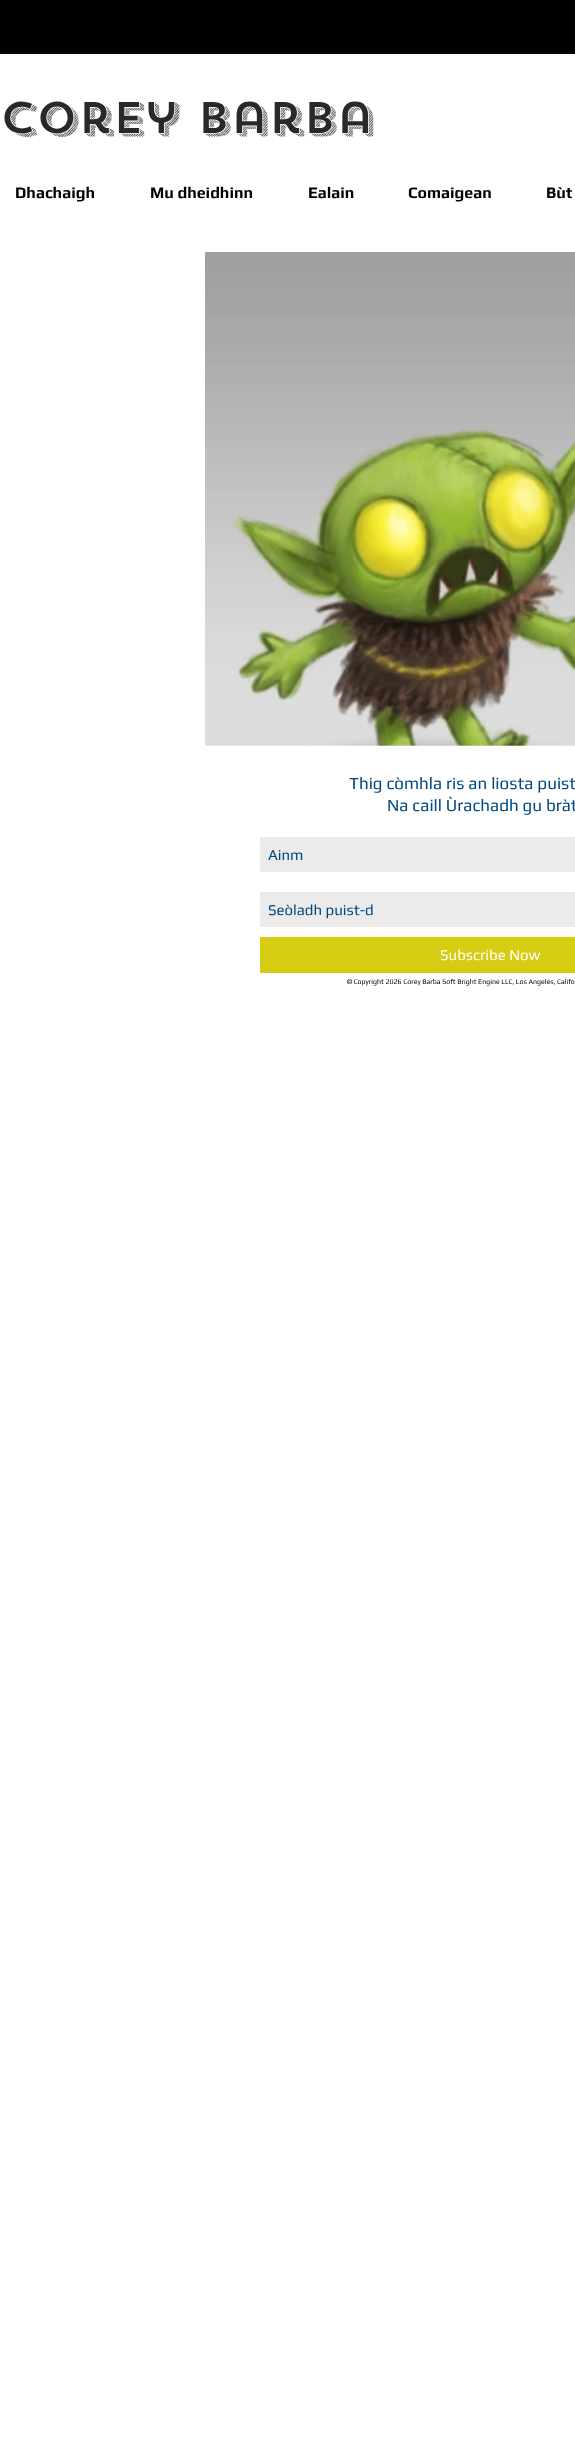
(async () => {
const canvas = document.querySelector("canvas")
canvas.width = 575
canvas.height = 2451
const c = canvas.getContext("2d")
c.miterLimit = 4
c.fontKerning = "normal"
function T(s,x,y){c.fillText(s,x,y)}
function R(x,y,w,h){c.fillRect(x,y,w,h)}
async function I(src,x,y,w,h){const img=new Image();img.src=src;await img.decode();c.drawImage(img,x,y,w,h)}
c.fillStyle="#fff"
R(0,0,575,2451)
c.fillStyle="#010101"
R(0,0,575,54)
c.font="500 44px 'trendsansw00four'"
c.fillStyle="#292929"
T("Corey Barba",0,133)
c.font="bold 16px Play"
c.fillStyle="#000"
T("Dhachaigh",15,198)
T("Mu dheidhinn",150,198)
T("Ealain",308,198)
T("Comaigean",408,198)
T("Bùt",546,198)
await I("1.png",205,252,370,494)
c.font="17px Play"
c.fillStyle="#004980"
T("Thig còmhla ris an liosta puist",349,789)
T("Na caill Ùrachadh gu bràt",387,811)
c.fillStyle="#ebebeb"
R(260,837,315,35)
c.font="15px Play"
c.fillStyle="#004980"
T("Ainm",268,860)
c.fillStyle="#ebebeb"
R(260,892,315,35)
c.fillStyle="#004980"
T("Seòladh puist-d",268,915)
c.fillStyle="#d6cc11"
R(260,937,315,36)
c.fillStyle="#fff"
T("Subscribe Now",440,960)
c.font="7px Play"
c.fillStyle="#000"
T("© Copyright 2026 Corey Barba Soft Bright Engine LLC, Los Angeles, Califo",347,984)
})()
